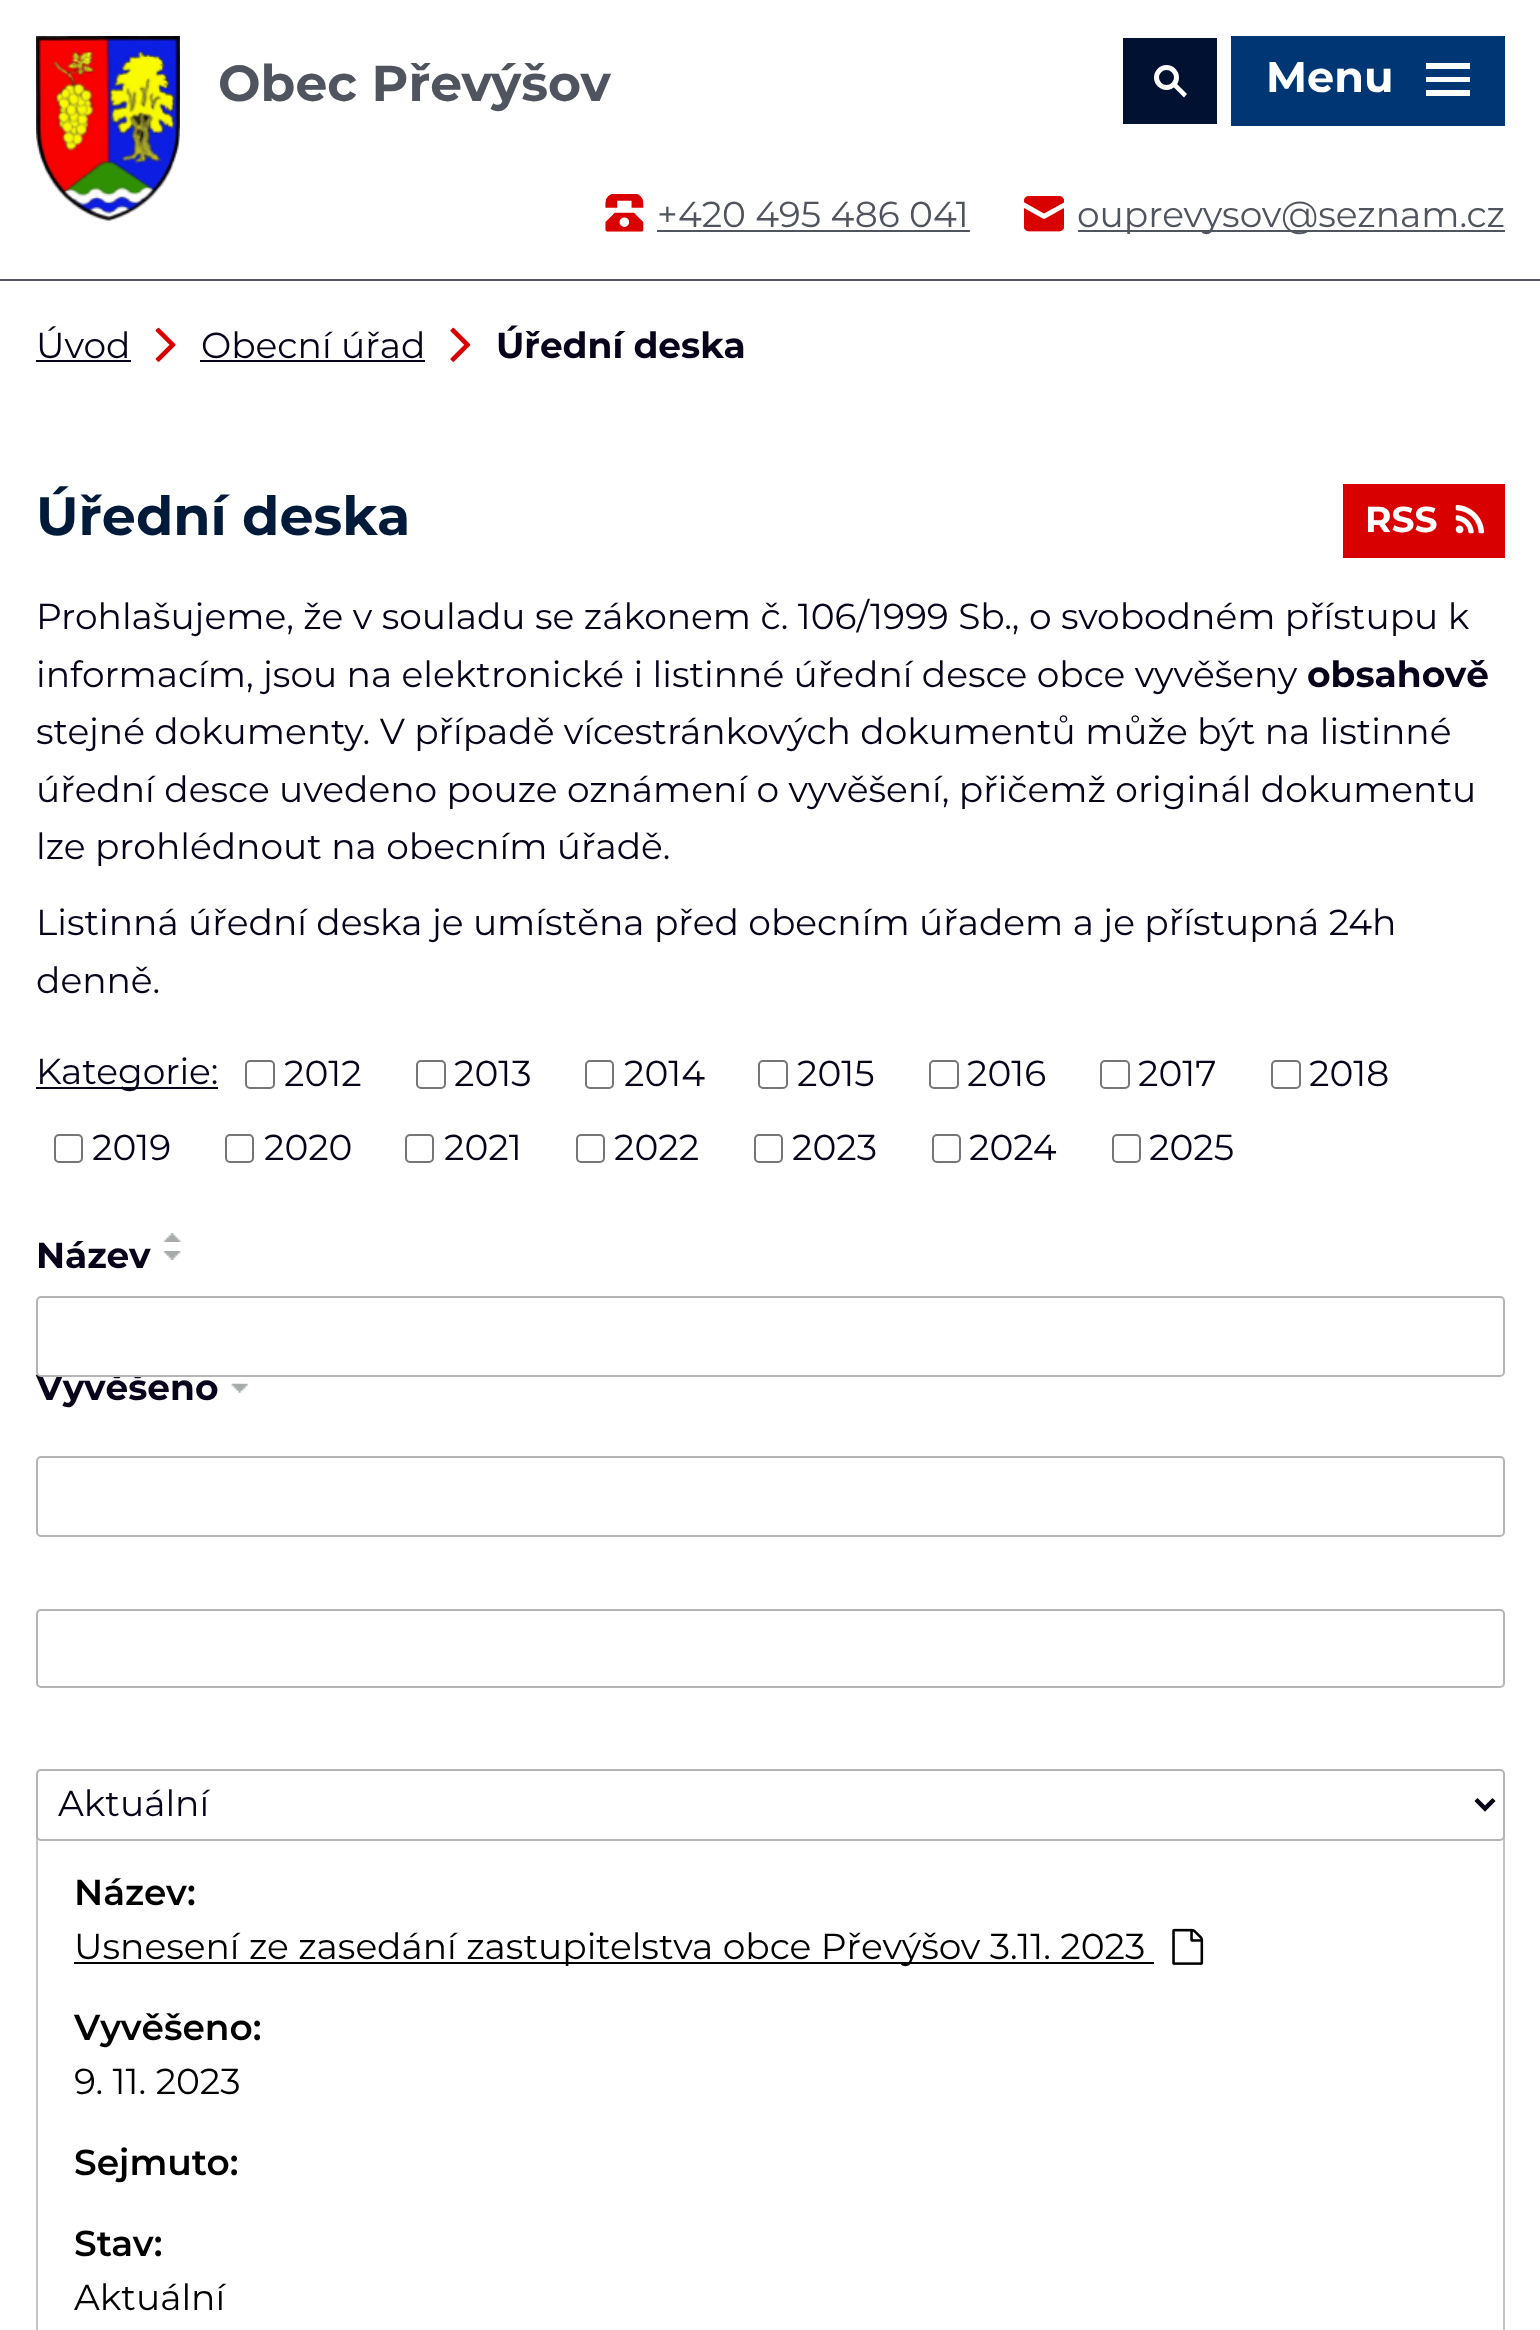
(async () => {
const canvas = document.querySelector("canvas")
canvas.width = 1540
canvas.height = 2330
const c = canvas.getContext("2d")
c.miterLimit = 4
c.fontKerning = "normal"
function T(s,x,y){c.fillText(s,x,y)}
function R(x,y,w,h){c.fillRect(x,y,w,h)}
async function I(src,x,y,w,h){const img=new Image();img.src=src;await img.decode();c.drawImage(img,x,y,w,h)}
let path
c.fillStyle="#fff"
R(0,0,1540,2330)
c.fillStyle="#003673"
R(1231,36,274,90)
c.font="bold 43px Montserrat"
c.fillStyle="#fff"
T("Menu",1266,92)
path = new Path2D("M1426 96v-6h44v6zm0-33h44v6h-44zm0 19v-5h44v5z")
c.fill(path)
c.fillStyle="#50545e"
R(0,279,1540,2)
await I("1.png",36,36,144,185)
c.font="bold 50.5px Montserrat"
T("Obec Převýšov",218,101)
c.fillStyle="#001131"
R(1123,38,94,86)
c.beginPath()
c.arc(1166.5,77.5,10,0,7)
c.strokeStyle="#fff"
c.lineWidth=5
c.stroke()
c.fillStyle="#fff"
path = new Path2D("M1175.5 82.5l11.5 11.5l-3 3.5l-11.5-11.5z")
c.fill(path)
await I("2.png",605,194,39,38)
c.font="36px Montserrat"
c.fillStyle="#50545e"
T("+420 495 486 041",657,227)
R(657,230,313,2)
await I("3.png",1024,196,40,36)
R(1078,230,427,2)
T("ouprevysov@seznam.cz",1077,227)
c.fillStyle="#08031b"
T("Úvod",36,358)
R(36,360,95,2)
await I("4.png",155,327,21,35)
T("Obecní úřad",201,358)
R(200,360,225,2)
await I("5.png",450,327,21,35)
c.font="bold 36px Montserrat"
T("Úřední deska",496,358)
c.font="bold 54px Montserrat"
c.fillStyle="#001b39"
T("Úřední deska",36,535)
c.fillStyle="#d90002"
R(1343,484,162,74)
c.font="bold 36px Montserrat"
c.fillStyle="#fff"
T("RSS",1365,532)
await I("6.png",1455,505,29,29)
c.font="36px Montserrat"
c.fillStyle="#08031b"
T("Prohlašujeme, že v souladu se zákonem č. 106/1999 Sb., o svobodném přístupu k",36,629)
T("informacím, jsou na elektronické i listinné úřední desce obce vyvěšeny",36,687)
c.font="bold 36px Montserrat"
T("obsahově",1307,687)
c.font="36px Montserrat"
T("stejné dokumenty. V případě vícestránkových dokumentů může být na listinné",36,744)
T("úřední desce uvedeno pouze oznámení o vyvěšení, přičemž originál dokumentu",36,802)
T("lze prohlédnout na obecním úřadě.",36,859)
T("Listinná úřední deska je umístěna před obecním úřadem a je přístupná 24h",36,935)
T("denně.",36,993)
R(36,1087,182,2)
T("Kategorie:",36,1084)
c.beginPath()
c.roundRect(246,1061,28,27,4)
c.strokeStyle="#767676"
c.lineWidth=2
c.stroke()
T("2012",284,1086)
c.beginPath()
c.roundRect(417,1061,28,27,4)
c.stroke()
T("2013",454,1086)
c.beginPath()
c.roundRect(586,1061,27,27,4)
c.stroke()
T("2014",624,1086)
c.beginPath()
c.roundRect(759,1061,28,27,4)
c.stroke()
T("2015",797,1086)
c.beginPath()
c.roundRect(930,1061,28,27,4)
c.stroke()
T("2016",967,1086)
c.beginPath()
c.roundRect(1101,1061,28,27,4)
c.stroke()
T("2017",1138,1086)
c.beginPath()
c.roundRect(1272,1061,28,27,4)
c.stroke()
T("2018",1309,1086)
c.beginPath()
c.roundRect(55,1135,27,27,4)
c.stroke()
T("2019",92,1160)
c.beginPath()
c.roundRect(226,1135,27,27,4)
c.stroke()
T("2020",264,1160)
c.beginPath()
c.roundRect(406,1135,27,27,4)
c.stroke()
T("2021",444,1160)
c.beginPath()
c.roundRect(577,1135,27,27,4)
c.stroke()
T("2022",614,1160)
c.beginPath()
c.roundRect(755,1135,27,27,4)
c.stroke()
T("2023",792,1160)
c.beginPath()
c.roundRect(933,1135,27,27,4)
c.stroke()
T("2024",969,1160)
c.beginPath()
c.roundRect(1113,1135,27,27,4)
c.stroke()
T("2025",1149,1160)
c.font="bold 36px Montserrat"
T("Název",36,1268)
await I("7.png",163,1233,18,9)
await I("8.png",163,1251,18,9)
T("Vyvěšeno",36,1400)
await I("9.png",231,1383,18,10)
c.fillStyle="#fff"
c.beginPath()
c.roundRect(37,1297,1467,79,4)
c.fill()
c.strokeStyle="#b5b5b5"
c.stroke()
c.beginPath()
c.roundRect(37,1457,1467,79,4)
c.stroke()
c.beginPath()
c.roundRect(37,1610,1467,77,4)
c.stroke()
c.fillStyle="#c5c5c5"
path = new Path2D("M1505 1807v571l-2-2v-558z")
c.fill(path)
path = new Path2D("M36 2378v-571l2 11v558z")
c.fill(path)
c.fillStyle="#fff"
c.beginPath()
c.roundRect(37,1770,1467,70,4)
c.fill()
c.stroke()
path = new Path2D("M1476 1799.5l9 9l9-9")
c.strokeStyle="#08031b"
c.lineWidth=4.5
c.stroke(path)
c.font="36px Montserrat"
c.fillStyle="#08031b"
T("Aktuální",58,1816)
c.font="600 36px Montserrat"
c.fillStyle="#000"
T("Název:",74,1905)
R(74,1962,1080,2)
c.font="36px Montserrat"
T("Usnesení ze zasedání zastupitelstva obce Převýšov 3.11. 2023",74,1959)
await I("10.png",1172,1928,32,37)
c.font="600 36px Montserrat"
T("Vyvěšeno:",74,2040)
c.font="36px Montserrat"
T("9. 11. 2023",74,2094)
c.font="600 36px Montserrat"
T("Sejmuto:",74,2175)
T("Stav:",74,2256)
c.font="36px Montserrat"
T("Aktuální",74,2310)
})()
